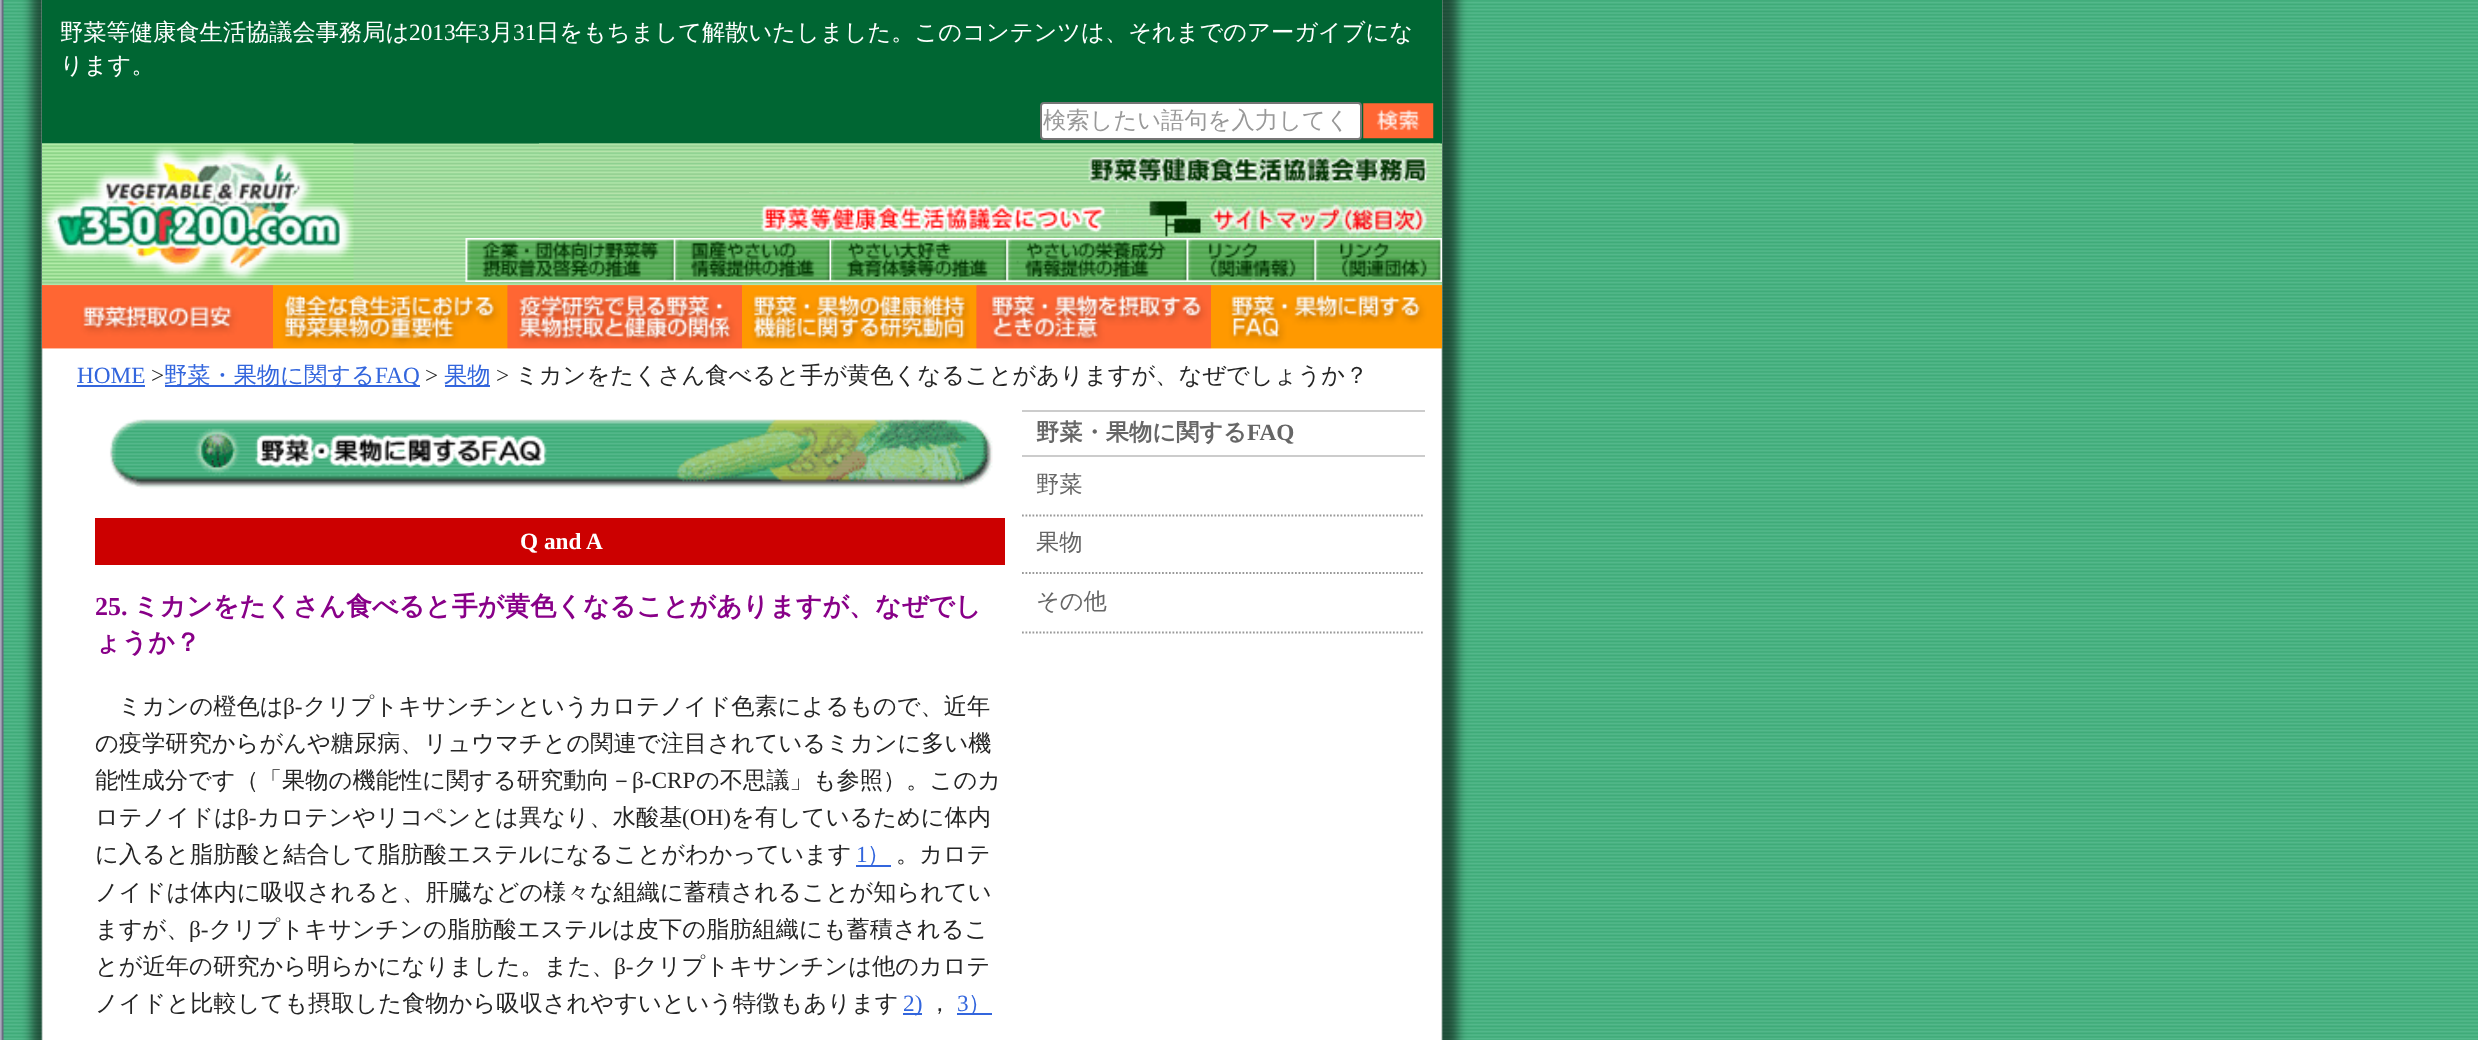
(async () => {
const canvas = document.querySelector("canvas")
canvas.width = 2478
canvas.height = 1040
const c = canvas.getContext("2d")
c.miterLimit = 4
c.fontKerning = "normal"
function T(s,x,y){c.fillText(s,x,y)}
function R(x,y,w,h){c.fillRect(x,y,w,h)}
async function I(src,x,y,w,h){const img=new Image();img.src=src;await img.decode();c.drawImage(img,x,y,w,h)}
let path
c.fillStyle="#fff"
R(0,0,2478,1040)
await I("1.png",0,0,2478,1040)
c.fillStyle="#063"
R(42,0,1400,144)
c.font="500 23.25px WenQuanYi Zen Hei"
c.fillStyle="#fff"
T("野菜等健康食生活協議会事務局は",60,40)
c.font="23.25px Liberation Serif"
T("2013",409,40)
c.font="500 23.25px WenQuanYi Zen Hei"
T("年",455,40)
c.font="23.25px Liberation Serif"
T("3",478,40)
c.font="500 23.25px WenQuanYi Zen Hei"
T("月",490,40)
c.font="23.25px Liberation Serif"
T("31",513,40)
c.font="500 23.25px WenQuanYi Zen Hei"
T("日をもちまして解散いたしました。このコンテンツは、それまでのアーガイブにな",536,40)
T("ります。",60,73)
c.beginPath()
c.roundRect(1041,103,320,36,3)
c.fill()
c.strokeStyle="#767676"
c.lineWidth=2
c.stroke()
c.font="500 23.3px WenQuanYi Zen Hei"
c.fillStyle="#999"
T("検索したい語句を入力してく",1043,128)
await I("2.png",1363,103,71,36)
await I("3.png",42,143,1400,143)
await I("4.png",42,143,312,137)
await I("5.png",539,143,902,95)
await I("6.png",749,192,368,46)
await I("7.png",1116,192,316,36)
await I("8.png",465,238,977,44)
await I("9.png",465,238,211,44)
await I("10.png",675,239,157,43)
await I("11.png",831,239,176,43)
await I("12.png",1006,239,179,43)
await I("13.png",1184,239,129,43)
await I("14.png",1312,239,130,43)
await I("15.png",42,285,1400,64)
await I("16.png",42,285,231,64)
await I("17.png",273,285,235,64)
await I("18.png",507,285,235,64)
await I("19.png",742,285,235,64)
await I("20.png",976,285,235,64)
await I("21.png",1211,285,231,64)
c.font="23.25px Liberation Serif"
c.fillStyle="#36d"
T("HOME",77,383)
R(77,385,68,2)
c.fillStyle="#252525"
T(">",151,383)
c.fillStyle="#36d"
R(165,385,255,2)
c.font="500 23.25px WenQuanYi Zen Hei"
T("野菜・果物に関する",164,383)
c.font="23.25px Liberation Serif"
T("FAQ",375,383)
c.fillStyle="#252525"
T(">",425,383)
c.fillStyle="#36d"
R(445,385,45,2)
c.font="500 23.25px WenQuanYi Zen Hei"
T("果物",444,383)
c.font="23.25px Liberation Serif"
c.fillStyle="#252525"
T(">",496,383)
c.font="500 23.25px WenQuanYi Zen Hei"
T("ミカンをたくさん食べると手が黄色くなることがありますが、なぜでしょうか？",515,383)
await I("22.png",109,419,884,70)
c.fillStyle="#c00"
R(95,518,910,47)
c.font="bold 23.25px Liberation Serif"
c.fillStyle="#fff"
T("Q and A",520,549)
c.font="bold 26px Liberation Serif"
c.fillStyle="#808"
T("25.",95,615)
c.font="bold 26px WenQuanYi Zen Hei"
T("ミカンをたくさん食べると手が黄色くなることがありますが、なぜでし",133,615)
T("ょうか？",95,651)
c.font="500 23.25px WenQuanYi Zen Hei"
c.fillStyle="#252525"
T("ミカンの橙色は",118,714)
c.font="23.25px Liberation Serif"
T("β-",283,714)
c.font="500 23.25px WenQuanYi Zen Hei"
T("クリプトキサンチンというカロテノイド色素によるもので、近年",303,714)
T("の疫学研究からがんや糖尿病、リュウマチとの関連で注目されているミカンに多い機",95,751)
T("能性成分です（「果物の機能性に関する研究動向－",95,788)
c.font="23.25px Liberation Serif"
T("β-CRP",632,788)
c.font="500 23.25px WenQuanYi Zen Hei"
T("の不思議」も参照）。このカ",696,788)
T("ロテノイドは",95,825)
c.font="23.25px Liberation Serif"
T("β-",237,825)
c.font="500 23.25px WenQuanYi Zen Hei"
T("カロテンやリコペンとは異なり、水酸基",257,825)
c.font="23.25px Liberation Serif"
T("(OH)",682,825)
c.font="500 23.25px WenQuanYi Zen Hei"
T("を有しているために体内",731,825)
T("に入ると脂肪酸と結合して脂肪酸エステルになることがわかっています",95,862)
c.font="23.25px Liberation Serif"
c.fillStyle="#36d"
T("1",856,862)
R(856,865,35,2)
c.font="500 23.25px WenQuanYi Zen Hei"
T("）",867,862)
c.fillStyle="#252525"
T("。カロテ",896,862)
T("ノイドは体内に吸収されると、肝臓などの様々な組織に蓄積されることが知られてい",95,900)
T("ますが、",95,937)
c.font="23.25px Liberation Serif"
T("β-",189,937)
c.font="500 23.25px WenQuanYi Zen Hei"
T("クリプトキサンチンの脂肪酸エステルは皮下の脂肪組織にも蓄積されるこ",209,937)
T("とが近年の研究から明らかになりました。また、",95,974)
c.font="23.25px Liberation Serif"
T("β-",614,974)
c.font="500 23.25px WenQuanYi Zen Hei"
T("クリプトキサンチンは他のカロテ",634,974)
T("ノイドと比較しても摂取した食物から吸収されやすいという特徴もあります",95,1011)
c.fillStyle="#36d"
R(903,1013,19,2)
c.font="23.25px Liberation Serif"
T("2)",903,1011)
c.font="500 23.25px WenQuanYi Zen Hei"
c.fillStyle="#252525"
T("，",928,1011)
c.font="23.25px Liberation Serif"
c.fillStyle="#36d"
T("3",957,1011)
R(957,1013,35,2)
c.font="500 23.25px WenQuanYi Zen Hei"
T("）",968,1011)
c.fillStyle="#ccc"
R(1022,410,403,2)
R(1022,455,403,2)
c.font="bold 23.25px WenQuanYi Zen Hei"
c.fillStyle="#666"
T("野菜・果物に関する",1036,440)
c.font="bold 23.25px Liberation Serif"
T("FAQ",1247,440)
path = new Path2D("M1022 515.5h402.5")
c.strokeStyle="#999"
c.lineWidth=1.8
c.setLineDash([1.75,1.75])
c.stroke(path)
c.font="500 23.25px WenQuanYi Zen Hei"
T("野菜",1036,492)
path = new Path2D("M1022 573h402.5")
c.stroke(path)
T("果物",1036,550)
path = new Path2D("M1022 632.5h402.5")
c.stroke(path)
T("その他",1036,609)
})()
